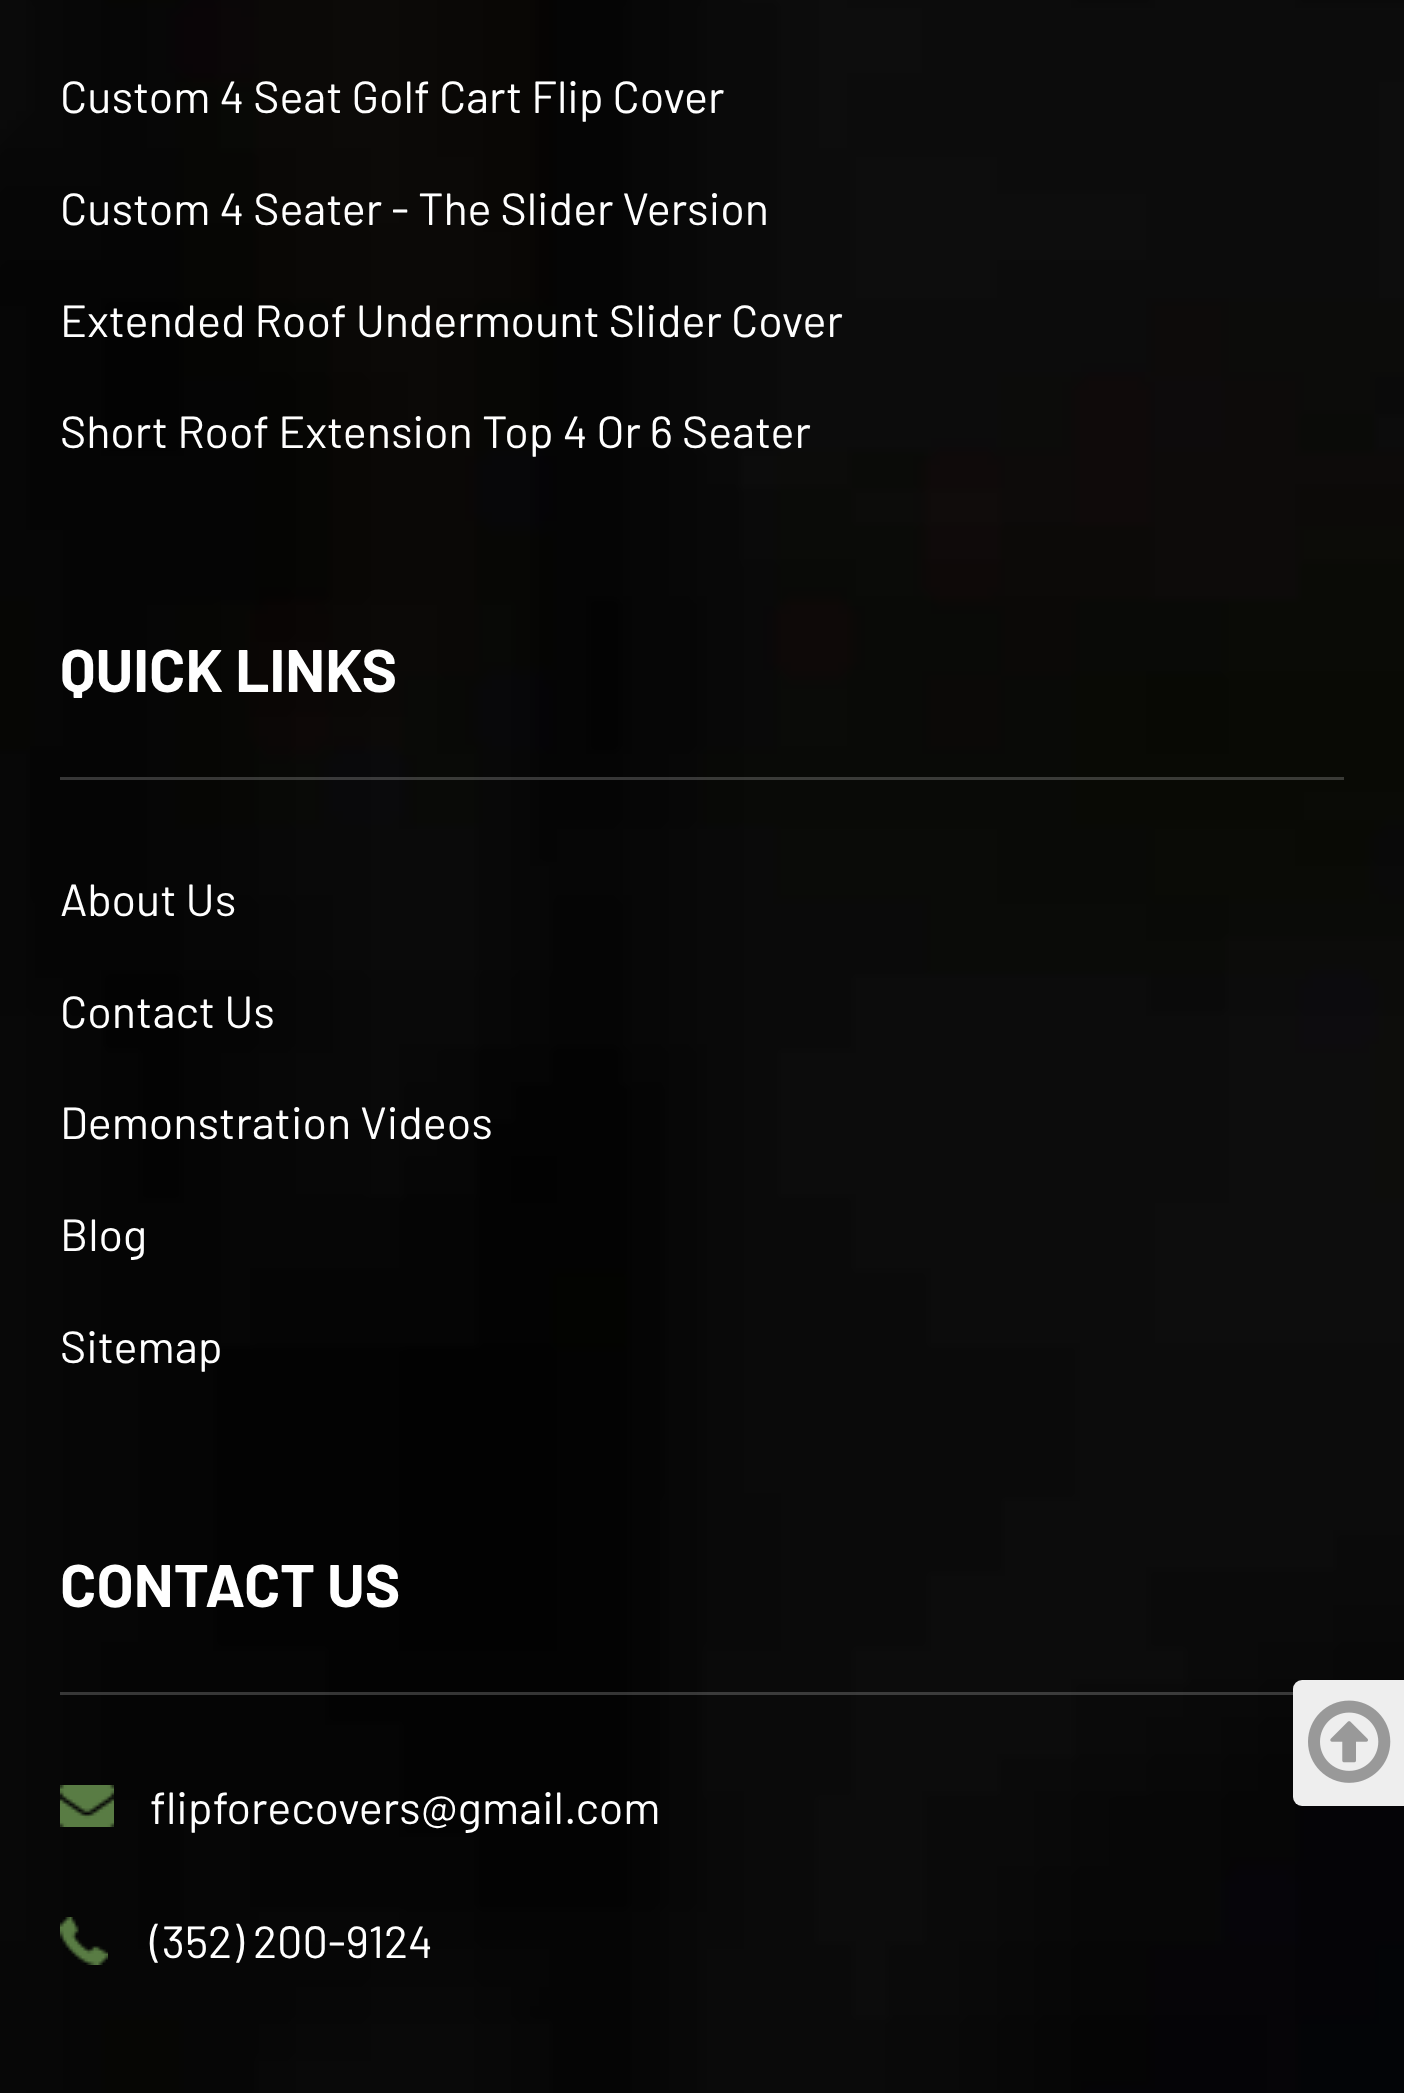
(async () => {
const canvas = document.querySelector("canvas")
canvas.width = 1404
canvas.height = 2093
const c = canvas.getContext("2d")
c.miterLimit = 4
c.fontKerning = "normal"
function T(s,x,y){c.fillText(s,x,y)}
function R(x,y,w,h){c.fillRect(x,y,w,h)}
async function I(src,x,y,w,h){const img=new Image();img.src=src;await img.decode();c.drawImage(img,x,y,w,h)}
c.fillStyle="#fff"
R(0,0,1404,2093)
await I("1.png",0,0,1404,2093)
c.font="45px Barlow"
T("Custom 4 Seat Golf Cart Flip Cover",60,113)
T("Custom 4 Seater - The Slider Version",60,225)
T("Extended Roof Undermount Slider Cover",60,337)
T("Short Roof Extension Top 4 Or 6 Seater",60,448)
c.fillStyle="#ffffff33"
R(60,777,1284,3)
c.font="bold 60px Barlow"
c.fillStyle="#fff"
T("QUICK LINKS",60,692)
c.font="45px Barlow"
T("About Us",60,916)
T("Contact Us",60,1028)
T("Demonstration Videos",60,1139)
T("Blog",60,1251)
T("Sitemap",60,1363)
c.fillStyle="#ffffff33"
R(60,1692,1233,3)
c.font="bold 60px Barlow"
c.fillStyle="#fff"
T("CONTACT US",60,1607)
await I("2.png",60,1785,54,42)
c.font="45px Barlow"
T("flipforecovers@gmail.com",150,1824)
await I("3.png",60,1917,48,48)
T("(352) 200-9124",150,1958)
c.fillStyle="#eee"
c.beginPath()
c.roundRect(1293,1680,111,126,[9,0,0,9])
c.fill()
await I("4.png",1308,1700,83,83)
})()
